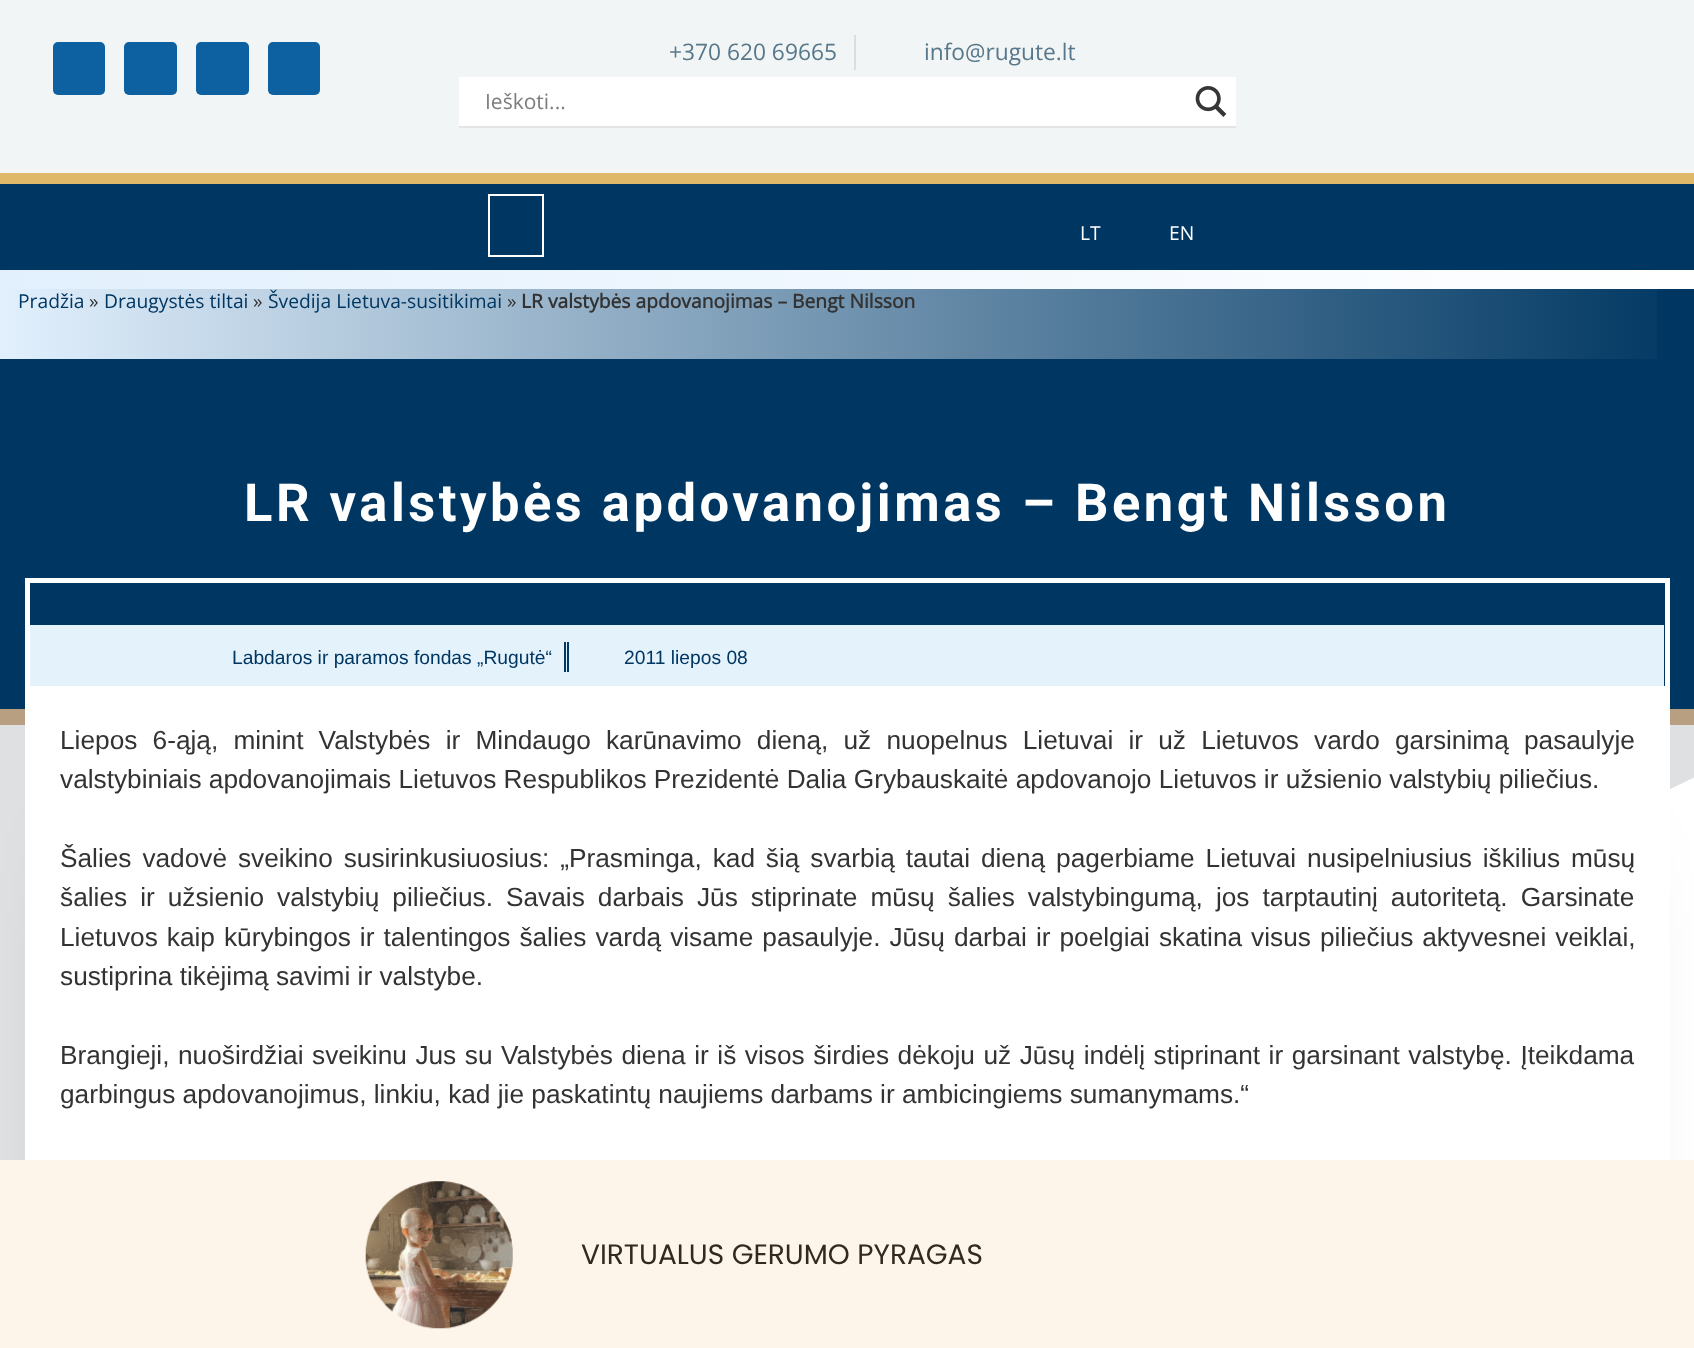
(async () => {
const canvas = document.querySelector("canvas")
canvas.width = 1694
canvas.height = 1348
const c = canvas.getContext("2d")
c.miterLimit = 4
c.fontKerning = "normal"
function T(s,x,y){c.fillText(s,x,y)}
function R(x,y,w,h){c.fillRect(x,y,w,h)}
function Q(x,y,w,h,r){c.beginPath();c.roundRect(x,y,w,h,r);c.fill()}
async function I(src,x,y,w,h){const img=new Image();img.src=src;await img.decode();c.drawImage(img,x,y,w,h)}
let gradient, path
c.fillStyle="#fff"
R(0,0,1694,1348)
c.fillStyle="#f2f5f5"
R(0,0,1694,173)
c.fillStyle="#0d61a1"
Q(53,42,52,53,5)
Q(124,42,53,53,5)
Q(196,42,53,53,5)
Q(268,42,52,53,5)
c.font="22.75px Open Sans"
c.fillStyle="#57778b"
T("+370 620 69665",669,60)
c.fillStyle="#ddd"
R(854,35,2,35)
c.fillStyle="#57778b"
T("info@rugute.lt",924,60)
c.fillStyle="#e4e4e4"
path = new Path2D("M459 126v2h777v-49v47z")
c.fill(path)
c.fillStyle="#fff"
R(459,77,777,49)
c.font="21px Open Sans"
c.fillStyle="#7d7d7d"
T("Ieškoti...",485,109)
await I("1.png",1195,86,32,31)
c.fillStyle="#e0b869"
R(0,173,1694,11)
c.fillStyle="#003762"
R(0,184,1694,86)
c.strokeStyle="#fff"
c.lineWidth=2
c.strokeRect(489,195,54,61)
c.font="19.25px Open Sans"
c.fillStyle="#fff"
T("LT",1080,240)
T("EN",1169,240)
c.fillStyle="#003762"
R(0,289,1694,420)
gradient = c.createLinearGradient(0,314,1694,314)
gradient.addColorStop(0,"#e2f0fd")
gradient.addColorStop(1,"#e2f0fd00")
c.fillStyle = gradient
R(0,270,1657,89)
c.fillStyle="#003762"
T("Pradžia",18,308)
c.fillStyle="#333"
T("»",89,308)
c.fillStyle="#003762"
T("Draugystės tiltai",104,308)
c.fillStyle="#333"
T("»",253,308)
c.fillStyle="#003762"
T("Švedija Lietuva-susitikimai",268,308)
c.fillStyle="#333"
T("»",507,308)
c.font="bold 19.25px Open Sans"
T("LR valstybės apdovanojimas – Bengt Nilsson",521,308)
c.fillStyle="#b89f81"
R(0,709,1694,16)
c.letterSpacing="3.5px"
c.font="bold 52.5px Roboto"
c.fillStyle="#fff"
T("LR valstybės apdovanojimas – Bengt Nilsson",244,521)
c.lineWidth=5
c.strokeRect(27.5,580.5,1640,112)
c.fillStyle="#e4f2fc"
R(30,625,1634,61)
c.letterSpacing="0px"
c.font="19.25px Liberation Sans"
c.fillStyle="#003762"
T("Labdaros ir paramos fondas „Rugutė“",232,664)
R(564,642,2,30)
R(567,642,2,30)
T("2011 liepos 08",624,664)
c.save()
c.beginPath()
c.rect(0,725,1694,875)
c.clip()
c.fillStyle="#dfe0e2"
path = new Path2D("M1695 777v-53h-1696v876z")
c.fill(path)
c.restore()
c.fillStyle="#00000080"
c.filter="blur(58.5px)"
c.beginPath()
c.rect(124,873,1446,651)
c.fill()
c.filter="none"
c.fillStyle="#fff"
R(25,686,1645,474)
c.wordSpacing="7.9px"
c.font="26.25px Liberation Sans"
c.fillStyle="#333"
T("Liepos 6-ąją, minint Valstybės ir Mindaugo karūnavimo dieną, už nuopelnus Lietuvai ir už Lietuvos vardo garsinimą pasaulyje",60,749)
c.wordSpacing="0px"
T("valstybiniais apdovanojimais Lietuvos Respublikos Prezidentė Dalia Grybauskaitė apdovanojo Lietuvos ir užsienio valstybių piliečius.",60,788)
c.wordSpacing="3.6px"
T("Šalies vadovė sveikino susirinkusiuosius: „Prasminga, kad šią svarbią tautai dieną pagerbiame Lietuvai nusipelniusius iškilius mūsų",60,867)
c.wordSpacing="5.75px"
T("šalies ir užsienio valstybių piliečius. Savais darbais Jūs stiprinate mūsų šalies valstybingumą, jos tarptautinį autoritetą. Garsinate",60,906)
c.wordSpacing="1.7px"
T("Lietuvos kaip kūrybingos ir talentingos šalies vardą visame pasaulyje. Jūsų darbai ir poelgiai skatina visus piliečius aktyvesnei veiklai,",60,946)
c.wordSpacing="0px"
T("sustiprina tikėjimą savimi ir valstybe.",60,985)
c.wordSpacing="1.25px"
T("Brangieji, nuoširdžiai sveikinu Jus su Valstybės diena ir iš visos širdies dėkoju už Jūsų indėlį stiprinant ir garsinant valstybę. Įteikdama",60,1064)
c.wordSpacing="0px"
T("garbingus apdovanojimus, linkiu, kad jie paskatintų naujiems darbams ir ambicingiems sumanymams.“",60,1103)
c.fillStyle="#fdf5ea"
R(0,1160,1694,188)
await I("2.png",365,1181,148,148)
c.font="28px Poppins"
c.fillStyle="#33291d"
T("VIRTUALUS GERUMO PYRAGAS",581,1264)
})()
